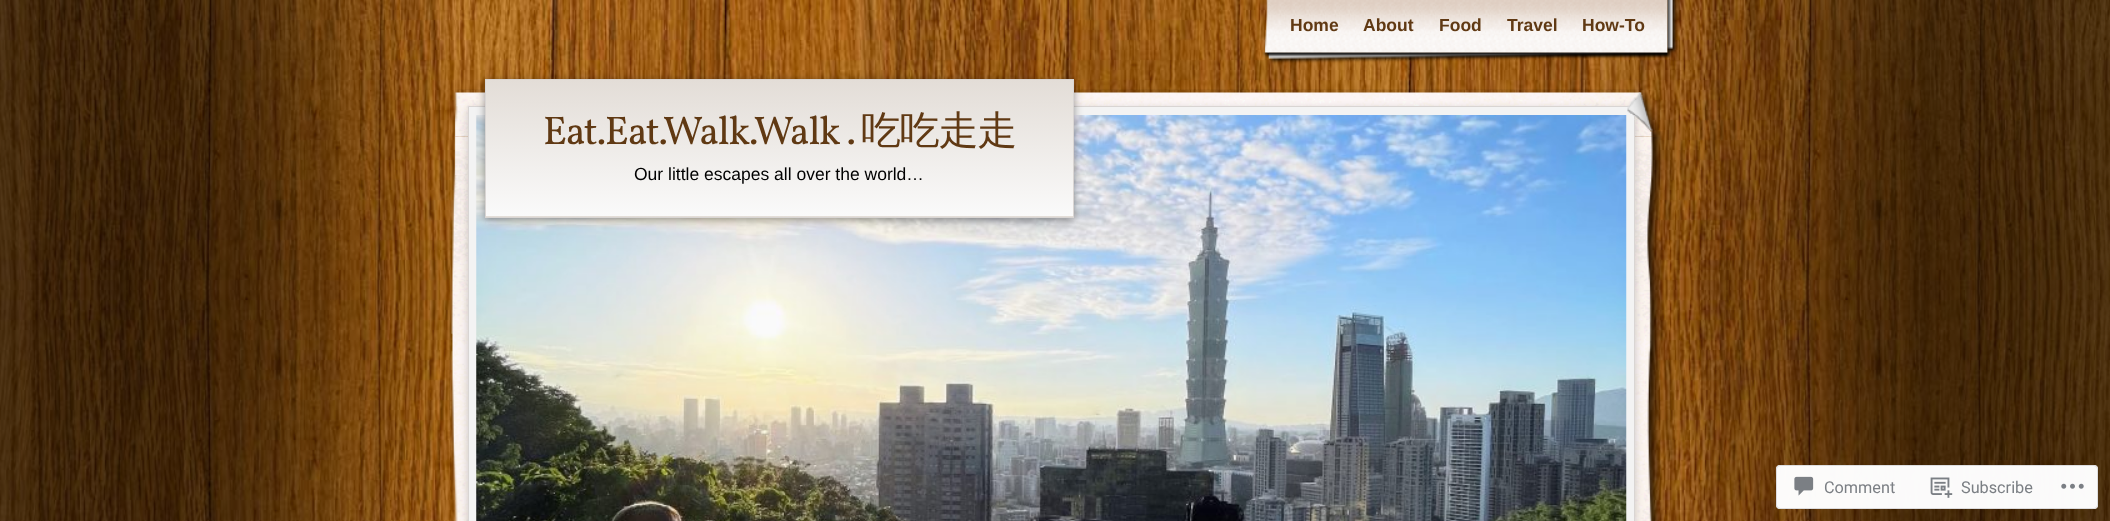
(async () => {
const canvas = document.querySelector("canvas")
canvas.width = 2110
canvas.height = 521
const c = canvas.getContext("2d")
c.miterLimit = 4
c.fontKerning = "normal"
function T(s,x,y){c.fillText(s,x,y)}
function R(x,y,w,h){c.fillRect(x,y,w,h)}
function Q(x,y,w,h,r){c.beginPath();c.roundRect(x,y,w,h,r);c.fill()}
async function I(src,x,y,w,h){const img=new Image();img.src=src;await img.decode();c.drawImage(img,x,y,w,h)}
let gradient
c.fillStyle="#fff"
R(0,0,2110,521)
await I("1.png",0,0,2110,521)
await I("2.png",0,0,2110,521)
await I("3.png",1262,0,406,64)
await I("4.png",1267,0,401,58)
c.font="bold 17.5px Liberation Sans"
c.fillStyle="#603913"
T("Home",1290,31)
T("About",1363,31)
T("Food",1439,31)
T("Travel",1507,31)
T("How-To",1582,31)
await I("5.png",1667,0,11,58)
await I("9.png",449,136,1215,385)
await I("6.png",452,89,1212,48)
c.fillStyle="#00000033"
c.filter="blur(4px)"
c.beginPath()
c.rect(468,109,1167,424)
c.fill()
c.filter="none"
c.fillStyle="#f3f3f3"
c.beginPath()
c.rect(468.5,106.5,1166,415)
c.fill()
c.strokeStyle="#d9d5d3"
c.stroke()
await I("7.png",1627,92,32,40)
await I("8.png",476,115,1151,406)
c.fillStyle="#00000066"
c.filter="blur(4px)"
c.beginPath()
c.rect(485,81,589,139)
c.fill()
c.filter="none"
gradient = c.createLinearGradient(779,80,779,216)
gradient.addColorStop(0,"#e3ddd7")
gradient.addColorStop(1,"#fafafa")
c.fillStyle = gradient
R(486,80,587,136)
gradient = c.createLinearGradient(779,216,779,353)
gradient.addColorStop(0,"#e3ddd7")
gradient.addColorStop(1,"#fafafa")
c.fillStyle = gradient
R(485,216,589,1)
c.strokeRect(485.5,79.5,588,138)
c.letterSpacing="-1.25px"
c.font="40px Vollkorn"
c.fillStyle="#603913"
T("Eat.Eat.Walk.Walk .",543,144)
c.font="500 40px WenQuanYi Zen Hei"
T("吃吃走走",861,144)
c.letterSpacing="0px"
c.font="17.5px Liberation Sans"
c.fillStyle="#000"
T("Our little escapes all over the world…",634,180)
c.fillStyle="#fffffffa"
Q(1776,465,322,44,4)
c.beginPath()
c.roundRect(1776.5,465.5,321,43,3.5)
c.strokeStyle="#dcdcdefa"
c.stroke()
await I("10.png",1794,476,20,20)
c.font="16.25px Roboto"
c.fillStyle="#7b7f84"
T("Comment",1824,493)
await I("11.png",1930,477,23,21)
T("Subscribe",1961,493)
await I("12.png",2061,483,23,6)
})()
